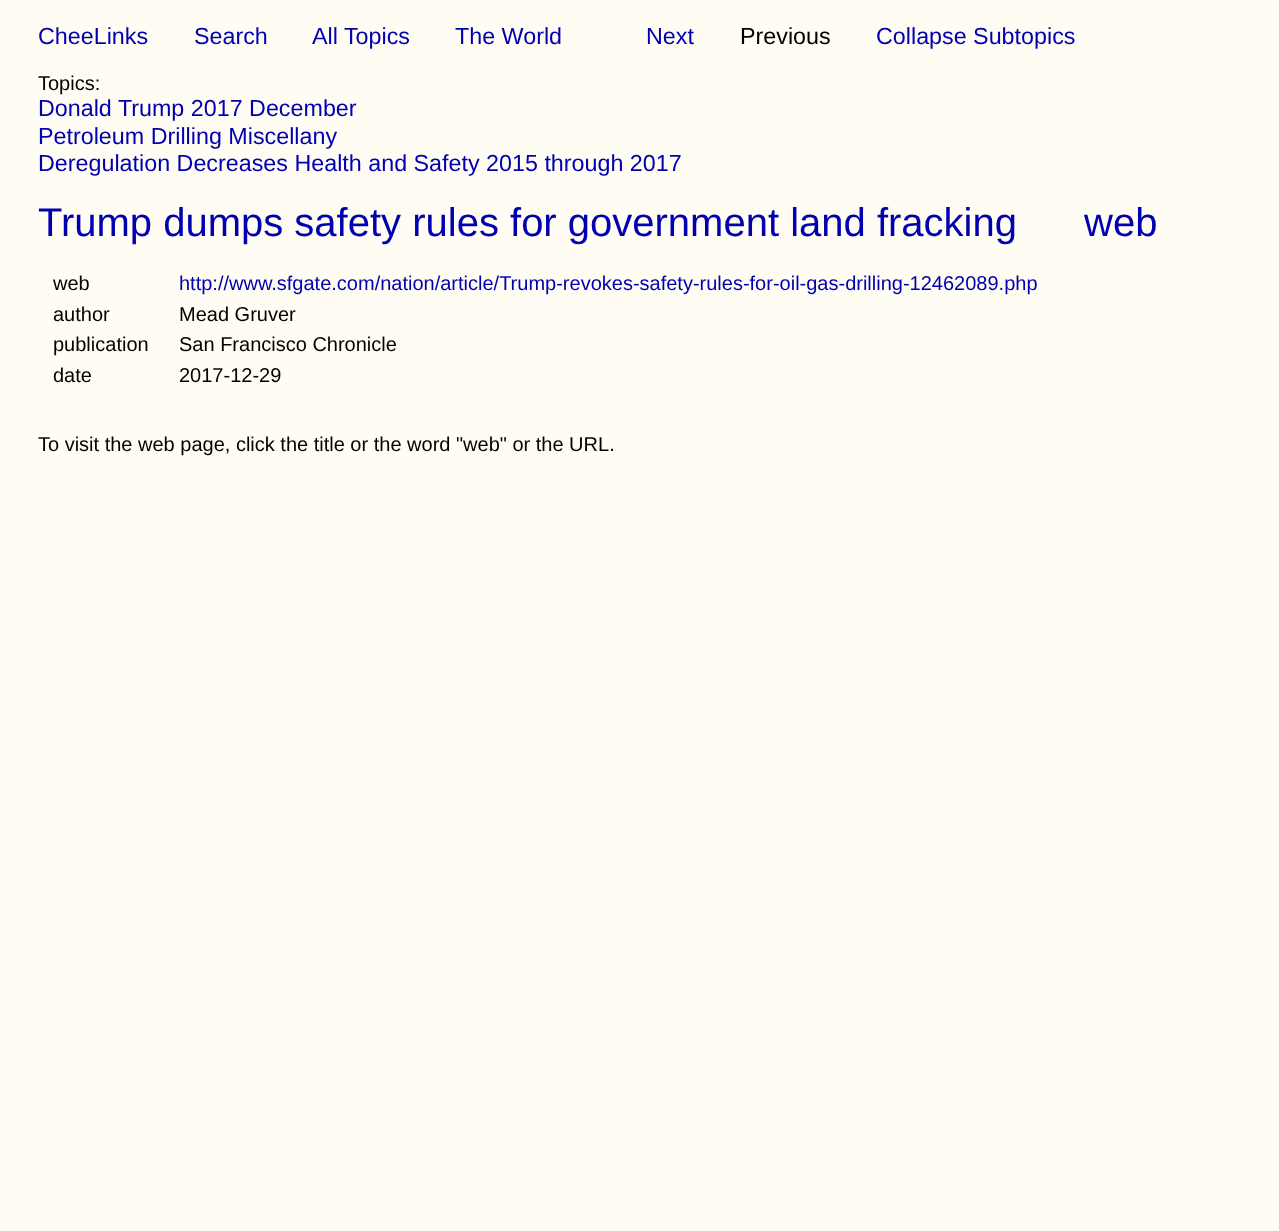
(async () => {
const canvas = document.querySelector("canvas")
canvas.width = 1279
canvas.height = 1231
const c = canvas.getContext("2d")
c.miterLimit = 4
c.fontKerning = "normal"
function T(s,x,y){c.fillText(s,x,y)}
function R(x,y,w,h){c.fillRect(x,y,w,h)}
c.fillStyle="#fffcf4"
R(0,0,1279,1231)
c.font="23.3px Liberation Sans"
c.fillStyle="#0000b0"
T("CheeLinks",38,44)
T("Search",194,44)
T("All Topics",312,44)
T("The World",455,44)
T("Next",646,44)
c.fillStyle="#000"
T("Previous",740,44)
c.fillStyle="#0000b0"
T("Collapse Subtopics",876,44)
c.font="20px Liberation Sans"
c.fillStyle="#000"
T("Topics:",38,90)
c.font="23.3px Liberation Sans"
c.fillStyle="#0000b0"
T("Donald Trump 2017 December",38,116)
T("Petroleum Drilling Miscellany",38,144)
T("Deregulation Decreases Health and Safety 2015 through 2017",38,171)
c.font="40px Liberation Sans"
T("Trump dumps safety rules for government land fracking",38,236)
T("web",1084,236)
c.font="20px Liberation Sans"
c.fillStyle="#000"
T("web",53,290)
c.fillStyle="#0000b0"
T("http://www.sfgate.com/nation/article/Trump-revokes-safety-rules-for-oil-gas-drilling-12462089.php",179,290)
c.fillStyle="#000"
T("author",53,321)
T("Mead Gruver",179,321)
T("publication",53,351)
T("San Francisco Chronicle",179,351)
T("date",53,382)
T("2017-12-29",179,382)
T("To visit the web page, click the title or the word \"web\" or the URL.",38,451)
})()
